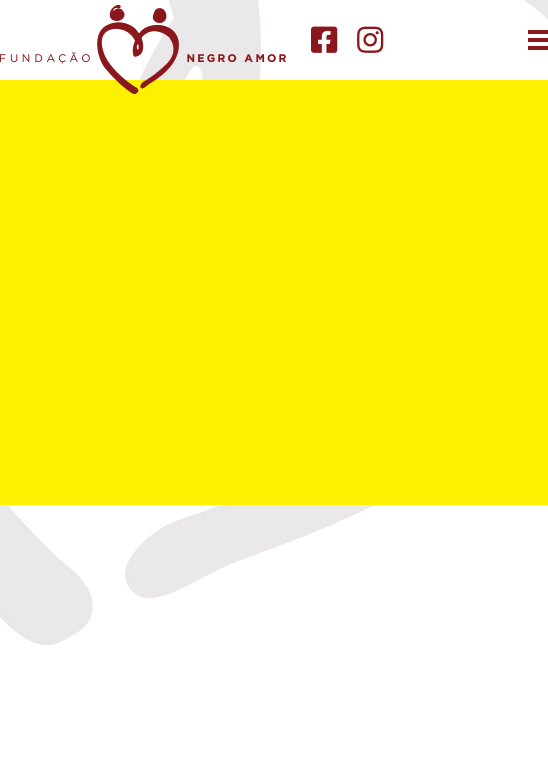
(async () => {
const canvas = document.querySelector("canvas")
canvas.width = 548
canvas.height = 767
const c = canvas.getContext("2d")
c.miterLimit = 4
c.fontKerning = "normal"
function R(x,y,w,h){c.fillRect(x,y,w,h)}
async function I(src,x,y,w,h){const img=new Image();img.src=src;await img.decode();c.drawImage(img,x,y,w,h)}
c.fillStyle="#fff"
R(0,0,548,767)
await I("1.png",0,0,548,646)
c.fillStyle="#fff000"
R(0,80,548,425)
await I("2.png",0,5,286,89)
await I("3.png",311,26,27,27)
await I("4.png",357,26,27,27)
c.fillStyle="#8a171b"
R(528,30,20,4)
R(528,38,20,4)
R(528,46,20,4)
})()
